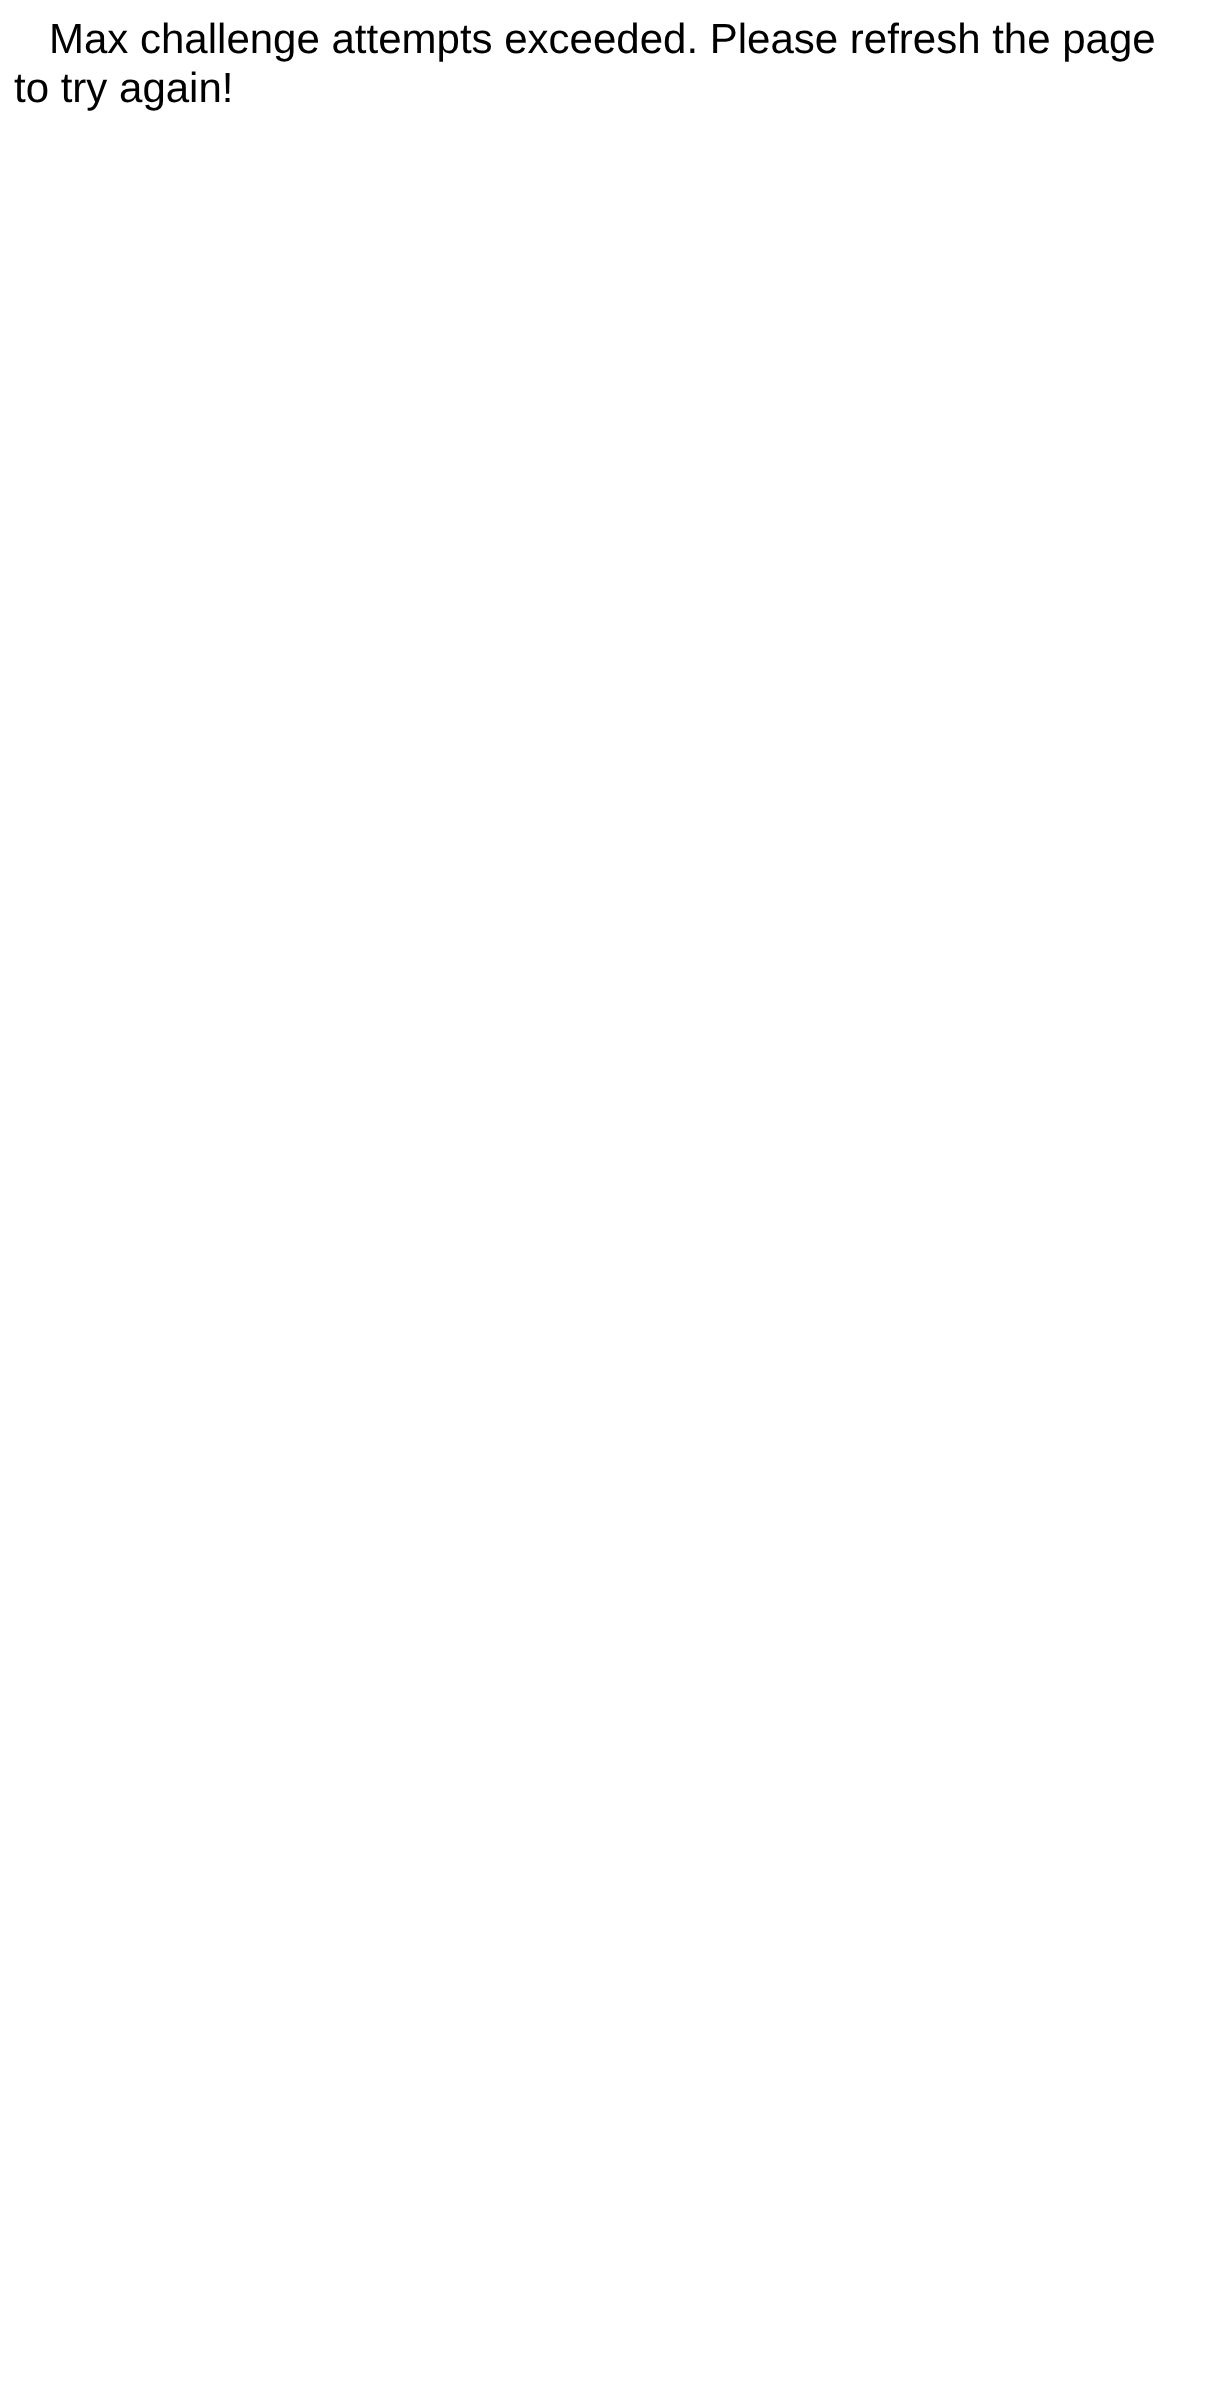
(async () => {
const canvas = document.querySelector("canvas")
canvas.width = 1209
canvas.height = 2404
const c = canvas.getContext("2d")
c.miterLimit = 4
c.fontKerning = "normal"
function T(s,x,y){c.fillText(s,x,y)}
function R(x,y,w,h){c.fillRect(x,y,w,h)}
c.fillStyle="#fff"
R(0,0,1209,2404)
c.font="42px Liberation Sans"
c.fillStyle="#000"
T("Max challenge attempts exceeded. Please refresh the page",49,53)
T("to try again!",14,102)
})()
